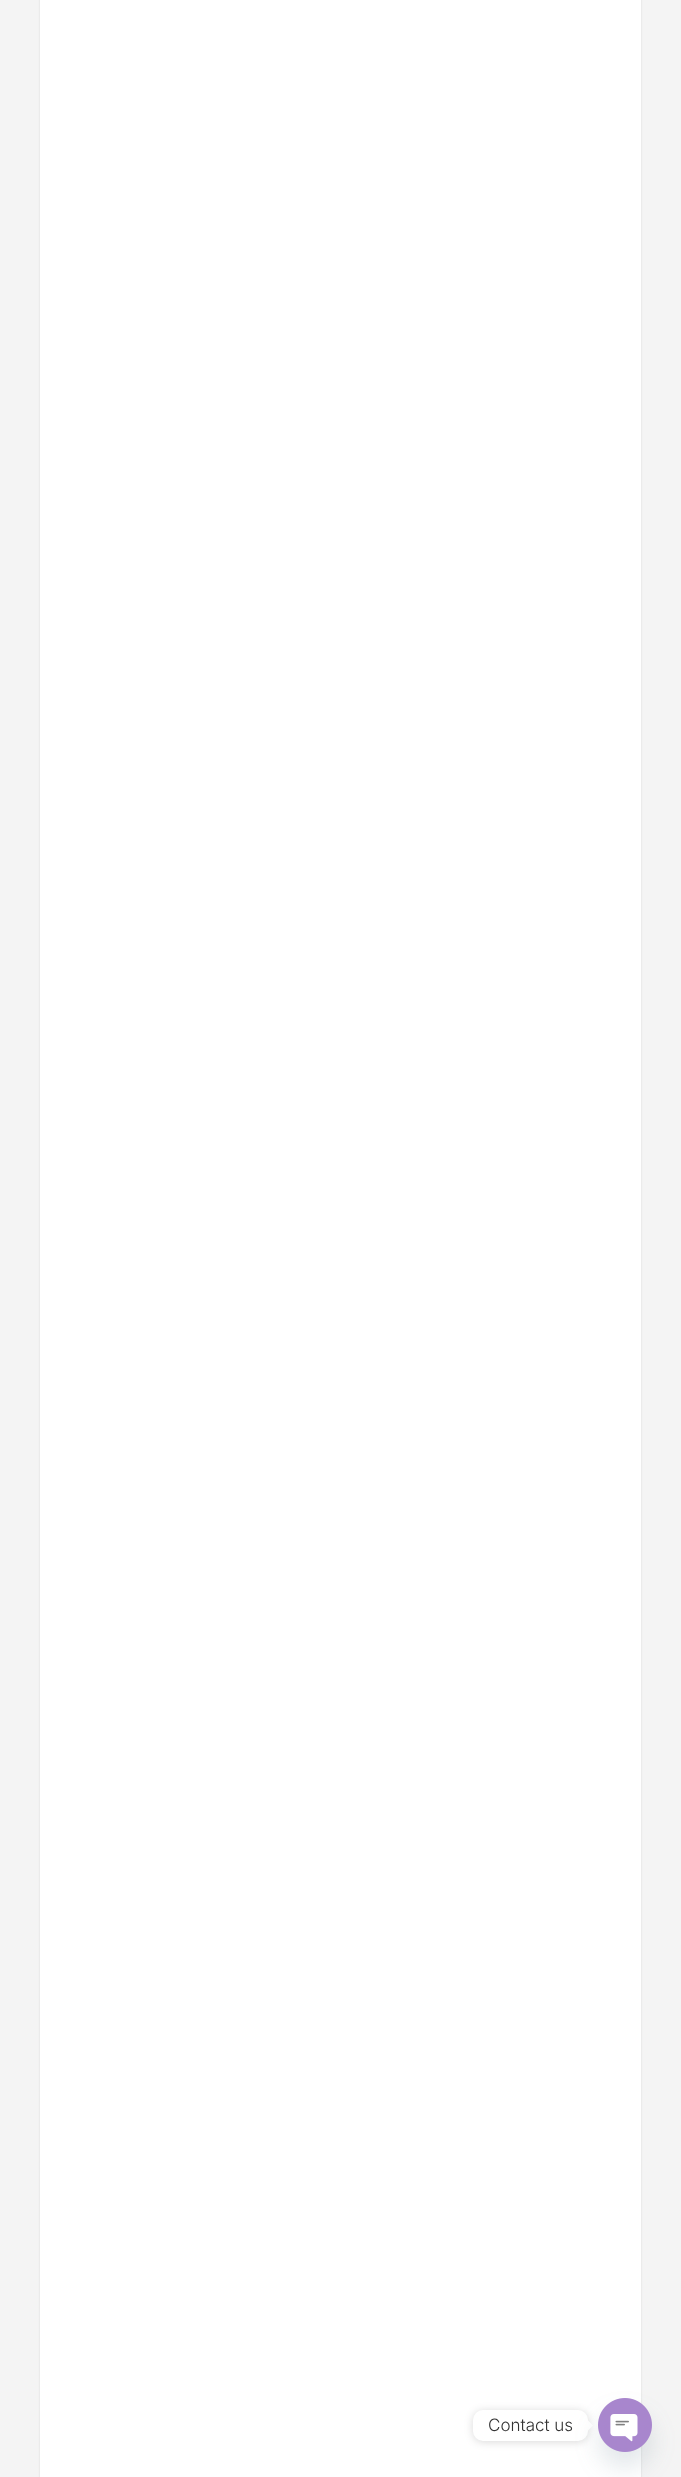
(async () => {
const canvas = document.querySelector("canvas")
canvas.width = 681
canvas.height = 2477
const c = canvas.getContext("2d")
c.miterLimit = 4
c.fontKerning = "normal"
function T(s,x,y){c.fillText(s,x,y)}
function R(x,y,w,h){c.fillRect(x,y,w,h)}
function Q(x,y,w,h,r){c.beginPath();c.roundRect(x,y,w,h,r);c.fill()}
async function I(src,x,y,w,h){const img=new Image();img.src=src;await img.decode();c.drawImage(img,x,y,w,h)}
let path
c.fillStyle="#f4f4f4"
R(0,0,681,2477)
c.fillStyle="#0000001a"
c.filter="blur(1px)"
c.beginPath()
c.roundRect(40,-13,601,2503,10)
c.fill()
c.filter="none"
c.fillStyle="#fff"
R(40,0,601,2477)
c.fillStyle="#00000026"
c.filter="blur(4px)"
c.beginPath()
c.roundRect(473,2411,115,31,10)
c.fill()
c.filter="none"
c.fillStyle="#fff"
Q(473,2410,115,31,10)
c.font="300 17px Inter"
c.fillStyle="#333"
T("Contact us",488,2431)
c.fillStyle="#fff"
path = new Path2D("M588 2430.5v-10l5 5z")
c.fill(path)
c.fillStyle="#49687e29"
c.filter="blur(12px)"
c.beginPath()
c.roundRect(598,2414,54,54,27)
c.fill()
c.filter="none"
await I("1.png",598,2398,54,54)
})()
